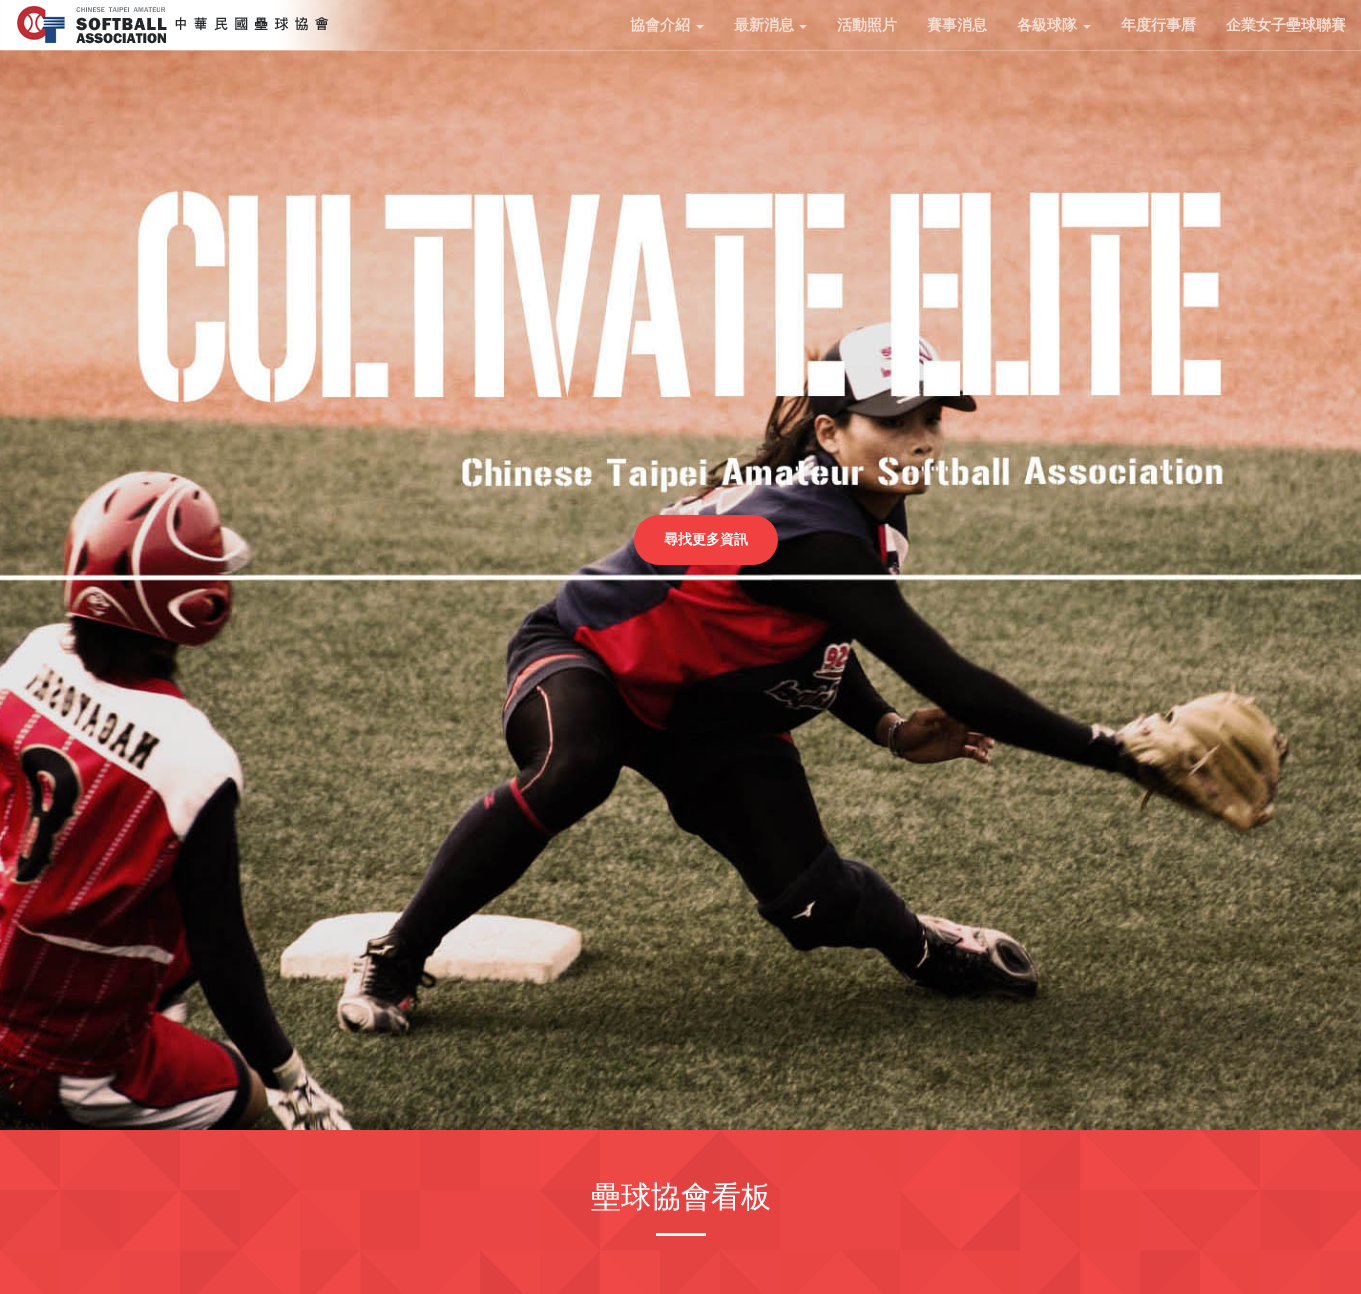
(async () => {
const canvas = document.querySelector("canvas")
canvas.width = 1361
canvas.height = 1294
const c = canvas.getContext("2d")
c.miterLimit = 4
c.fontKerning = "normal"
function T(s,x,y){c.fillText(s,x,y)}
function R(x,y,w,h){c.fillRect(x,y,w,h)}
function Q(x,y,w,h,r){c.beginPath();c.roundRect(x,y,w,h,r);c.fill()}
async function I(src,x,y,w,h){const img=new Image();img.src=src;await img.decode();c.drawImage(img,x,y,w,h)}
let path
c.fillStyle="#fff"
R(0,0,1361,1294)
await I("2.png",0,0,1361,1130)
c.fillStyle="#ffffff4d"
R(0,50,1361,1)
await I("1.png",0,0,420,50)
c.font="bold 15px WenQuanYi Zen Hei"
c.fillStyle="#f4dfd5"
T("協會介紹",630,30)
c.fillStyle="#ffffffb3"
path = new Path2D("M696 25h8l-4 4z")
c.fill(path)
c.fillStyle="#f4dfd5"
T("最新消息",734,30)
c.fillStyle="#ffffffb3"
path = new Path2D("M799 25h8l-4 4z")
c.fill(path)
c.fillStyle="#f4dfd5"
T("活動照片",837,30)
T("賽事消息",927,30)
T("各級球隊",1017,30)
c.fillStyle="#ffffffb3"
path = new Path2D("M1083 25h8l-4 4z")
c.fill(path)
c.fillStyle="#f4dfd5"
T("年度行事曆",1121,30)
T("企業女子壘球聯賽",1226,30)
c.fillStyle="#f04040"
Q(634,515,144,50,25)
c.font="bold 14px WenQuanYi Zen Hei"
c.fillStyle="#fff"
T("尋找更多資訊",664,544)
await I("3.png",0,1130,1361,164)
c.font="500 30px WenQuanYi Zen Hei"
T("壘球協會看板",591,1207)
R(656,1233,50,3)
})()
